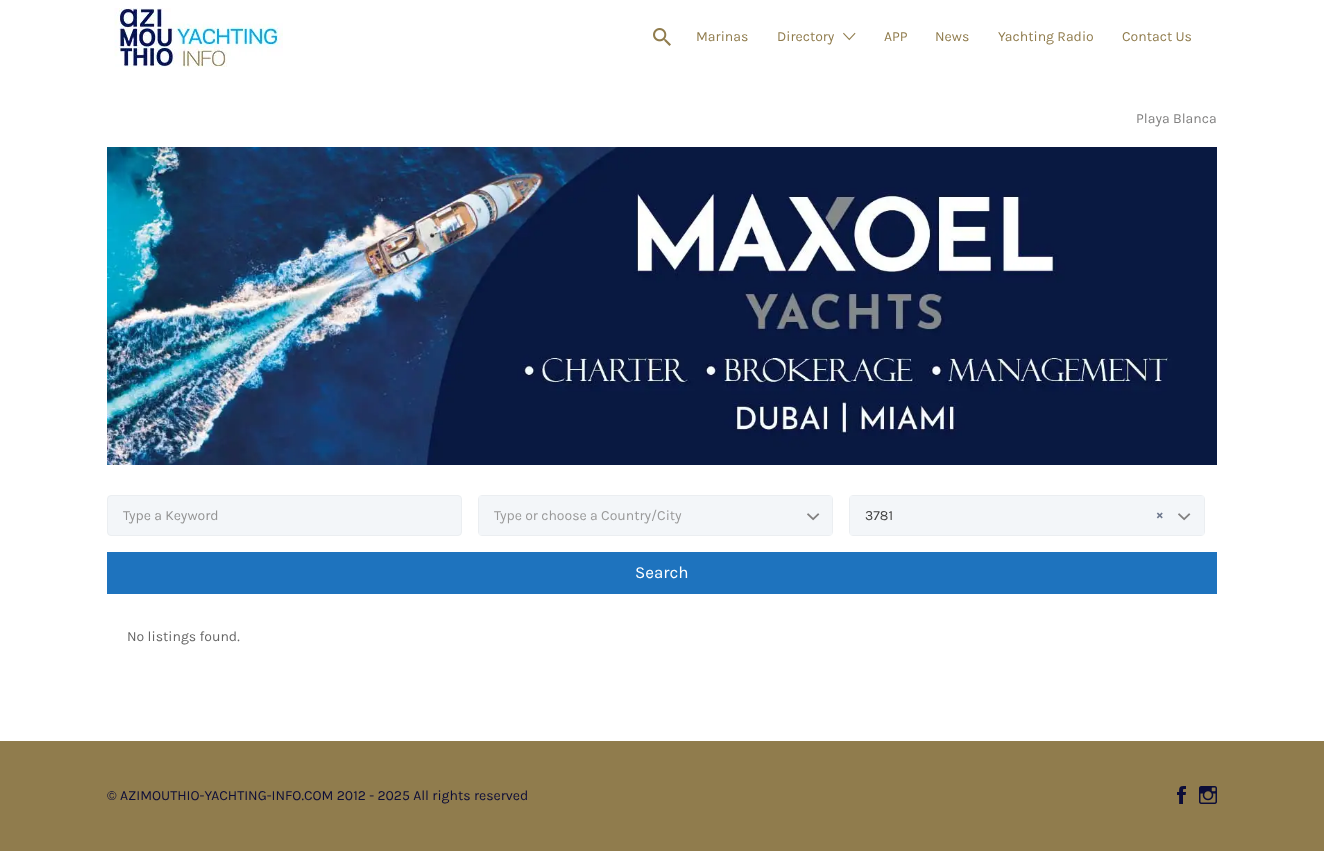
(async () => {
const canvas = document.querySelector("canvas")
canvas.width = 1324
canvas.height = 860
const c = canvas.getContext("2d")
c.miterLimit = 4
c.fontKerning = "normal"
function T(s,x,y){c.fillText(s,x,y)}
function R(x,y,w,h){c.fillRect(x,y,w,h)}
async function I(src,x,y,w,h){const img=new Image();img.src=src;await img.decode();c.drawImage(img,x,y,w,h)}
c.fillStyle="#fff"
R(0,0,1324,860)
await I("1.png",114,8,169,59)
await I("2.png",653,28,18,18)
c.font="14px Karla"
c.fillStyle="#907c4d"
T("Marinas",696,41)
T("Directory",777,41)
await I("3.png",843,32,13,9)
T("APP",884,41)
T("News",935,41)
T("Yachting Radio",998,41)
T("Contact Us",1122,41)
c.fillStyle="#818080"
T("Playa Blanca",1136,123)
await I("4.png",107,147,1110,318)
c.fillStyle="#f3f6f9"
c.beginPath()
c.roundRect(107.5,495.5,354,40,3.5)
c.fill()
c.strokeStyle="#ebeef1"
c.stroke()
c.fillStyle="#939393"
T("Type a Keyword",123,520)
c.beginPath()
c.roundRect(478.5,495.5,354,40,3.5)
c.stroke()
c.fillStyle="#f3f6f9"
R(479,496,353,39)
c.fillStyle="#999"
T("Type or choose a Country/City",494,520)
await I("5.png",807,513,13,8)
c.beginPath()
c.roundRect(849.5,495.5,355,40,3.5)
c.stroke()
c.fillStyle="#f3f6f9"
R(850,496,354,39)
c.fillStyle="#444"
T("3781",865,520)
c.font="bold 14px Karla"
c.fillStyle="#707a8f"
T("×",1156,519)
await I("5.png",1178,513,13,8)
c.fillStyle="#1e73be"
R(107,552,1110,42)
c.font="17px Karla"
c.fillStyle="#fff"
T("Search",635,578)
c.font="14px Karla"
c.fillStyle="#666"
T("No listings found.",127,641)
c.fillStyle="#907c4d"
R(0,741,1324,110)
c.fillStyle="#0c0d38"
T("© AZIMOUTHIO-YACHTING-INFO.COM 2012 - 2025 All rights reserved",107,800)
await I("6.png",1177,786,9,18)
await I("7.png",1199,786,18,18)
})()
